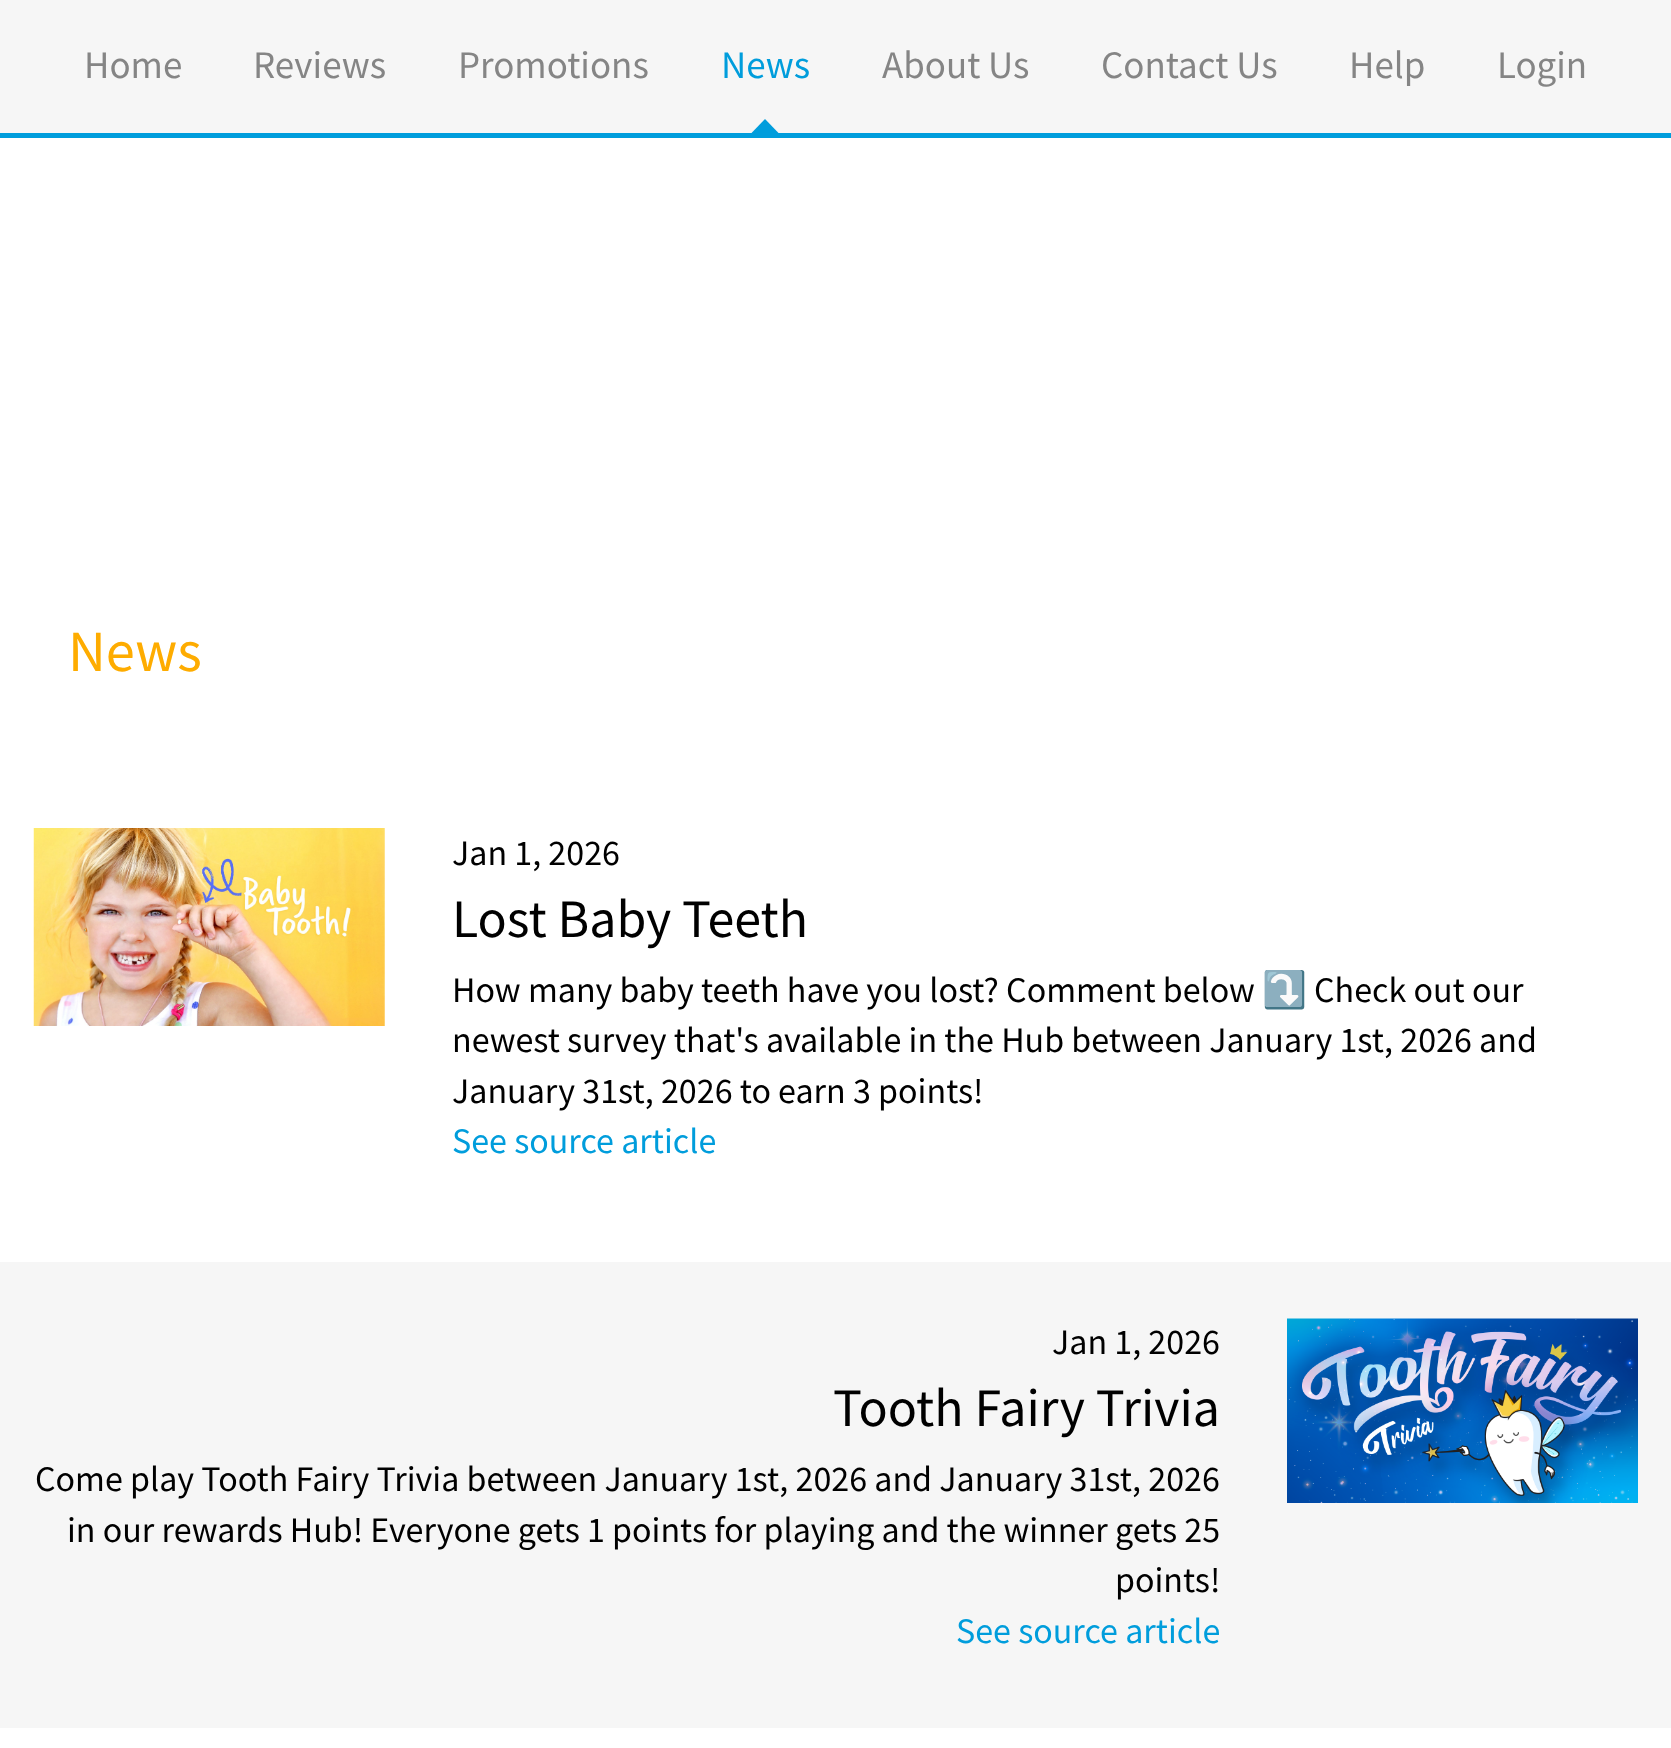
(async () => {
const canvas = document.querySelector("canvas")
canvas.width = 1671
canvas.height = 1748
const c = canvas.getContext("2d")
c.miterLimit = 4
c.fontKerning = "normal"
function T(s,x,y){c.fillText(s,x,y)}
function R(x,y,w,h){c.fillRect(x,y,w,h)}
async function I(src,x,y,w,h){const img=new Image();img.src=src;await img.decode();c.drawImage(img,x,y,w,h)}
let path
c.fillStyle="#fff"
R(0,0,1671,1748)
c.fillStyle="#f6f6f6"
R(0,0,1671,133)
c.fillStyle="#009ddc"
R(0,133,1671,5)
c.font="39px Source Sans Pro"
c.fillStyle="#858585"
T("Home",84,78)
T("Reviews",253,78)
T("Promotions",458,78)
c.fillStyle="#009ddc"
T("News",721,78)
path = new Path2D("M778.5 133h-27l13.5-14z")
c.fill(path)
c.fillStyle="#858585"
T("About Us",882,78)
T("Contact Us",1101,78)
T("Help",1349,78)
T("Login",1497,78)
c.font="58.5px Source Sans Pro"
c.fillStyle="#feac00"
T("News",68,671)
await I("1.png",33,828,352,198)
c.font="36px Source Sans Pro"
c.fillStyle="#000"
T("Jan 1, 2026",452,865)
c.font="54px Source Sans Pro"
T("Lost Baby Teeth",452,937)
c.font="36px Source Sans Pro"
T("How many baby teeth have you lost? Comment below",452,1002)
c.font="36px Noto Color Emoji"
T("⤵️",1262,1002)
c.font="36px Source Sans Pro"
T("Check out our",1314,1002)
T("newest survey that's available in the Hub between January 1st, 2026 and",452,1052)
T("January 31st, 2026 to earn 3 points!",452,1103)
c.fillStyle="#009ddc"
T("See source article",452,1153)
c.fillStyle="#f6f6f6"
R(0,1262,1671,466)
c.fillStyle="#000"
T("Jan 1, 2026",1052,1354)
c.font="54px Source Sans Pro"
T("Tooth Fairy Trivia",833,1426)
c.font="36px Source Sans Pro"
T("Come play Tooth Fairy Trivia between January 1st, 2026 and January 31st, 2026",35,1491)
T("in our rewards Hub! Everyone gets 1 points for playing and the winner gets 25",67,1542)
T("points!",1115,1592)
c.fillStyle="#009ddc"
T("See source article",956,1643)
await I("2.png",1287,1318,351,185)
})()
